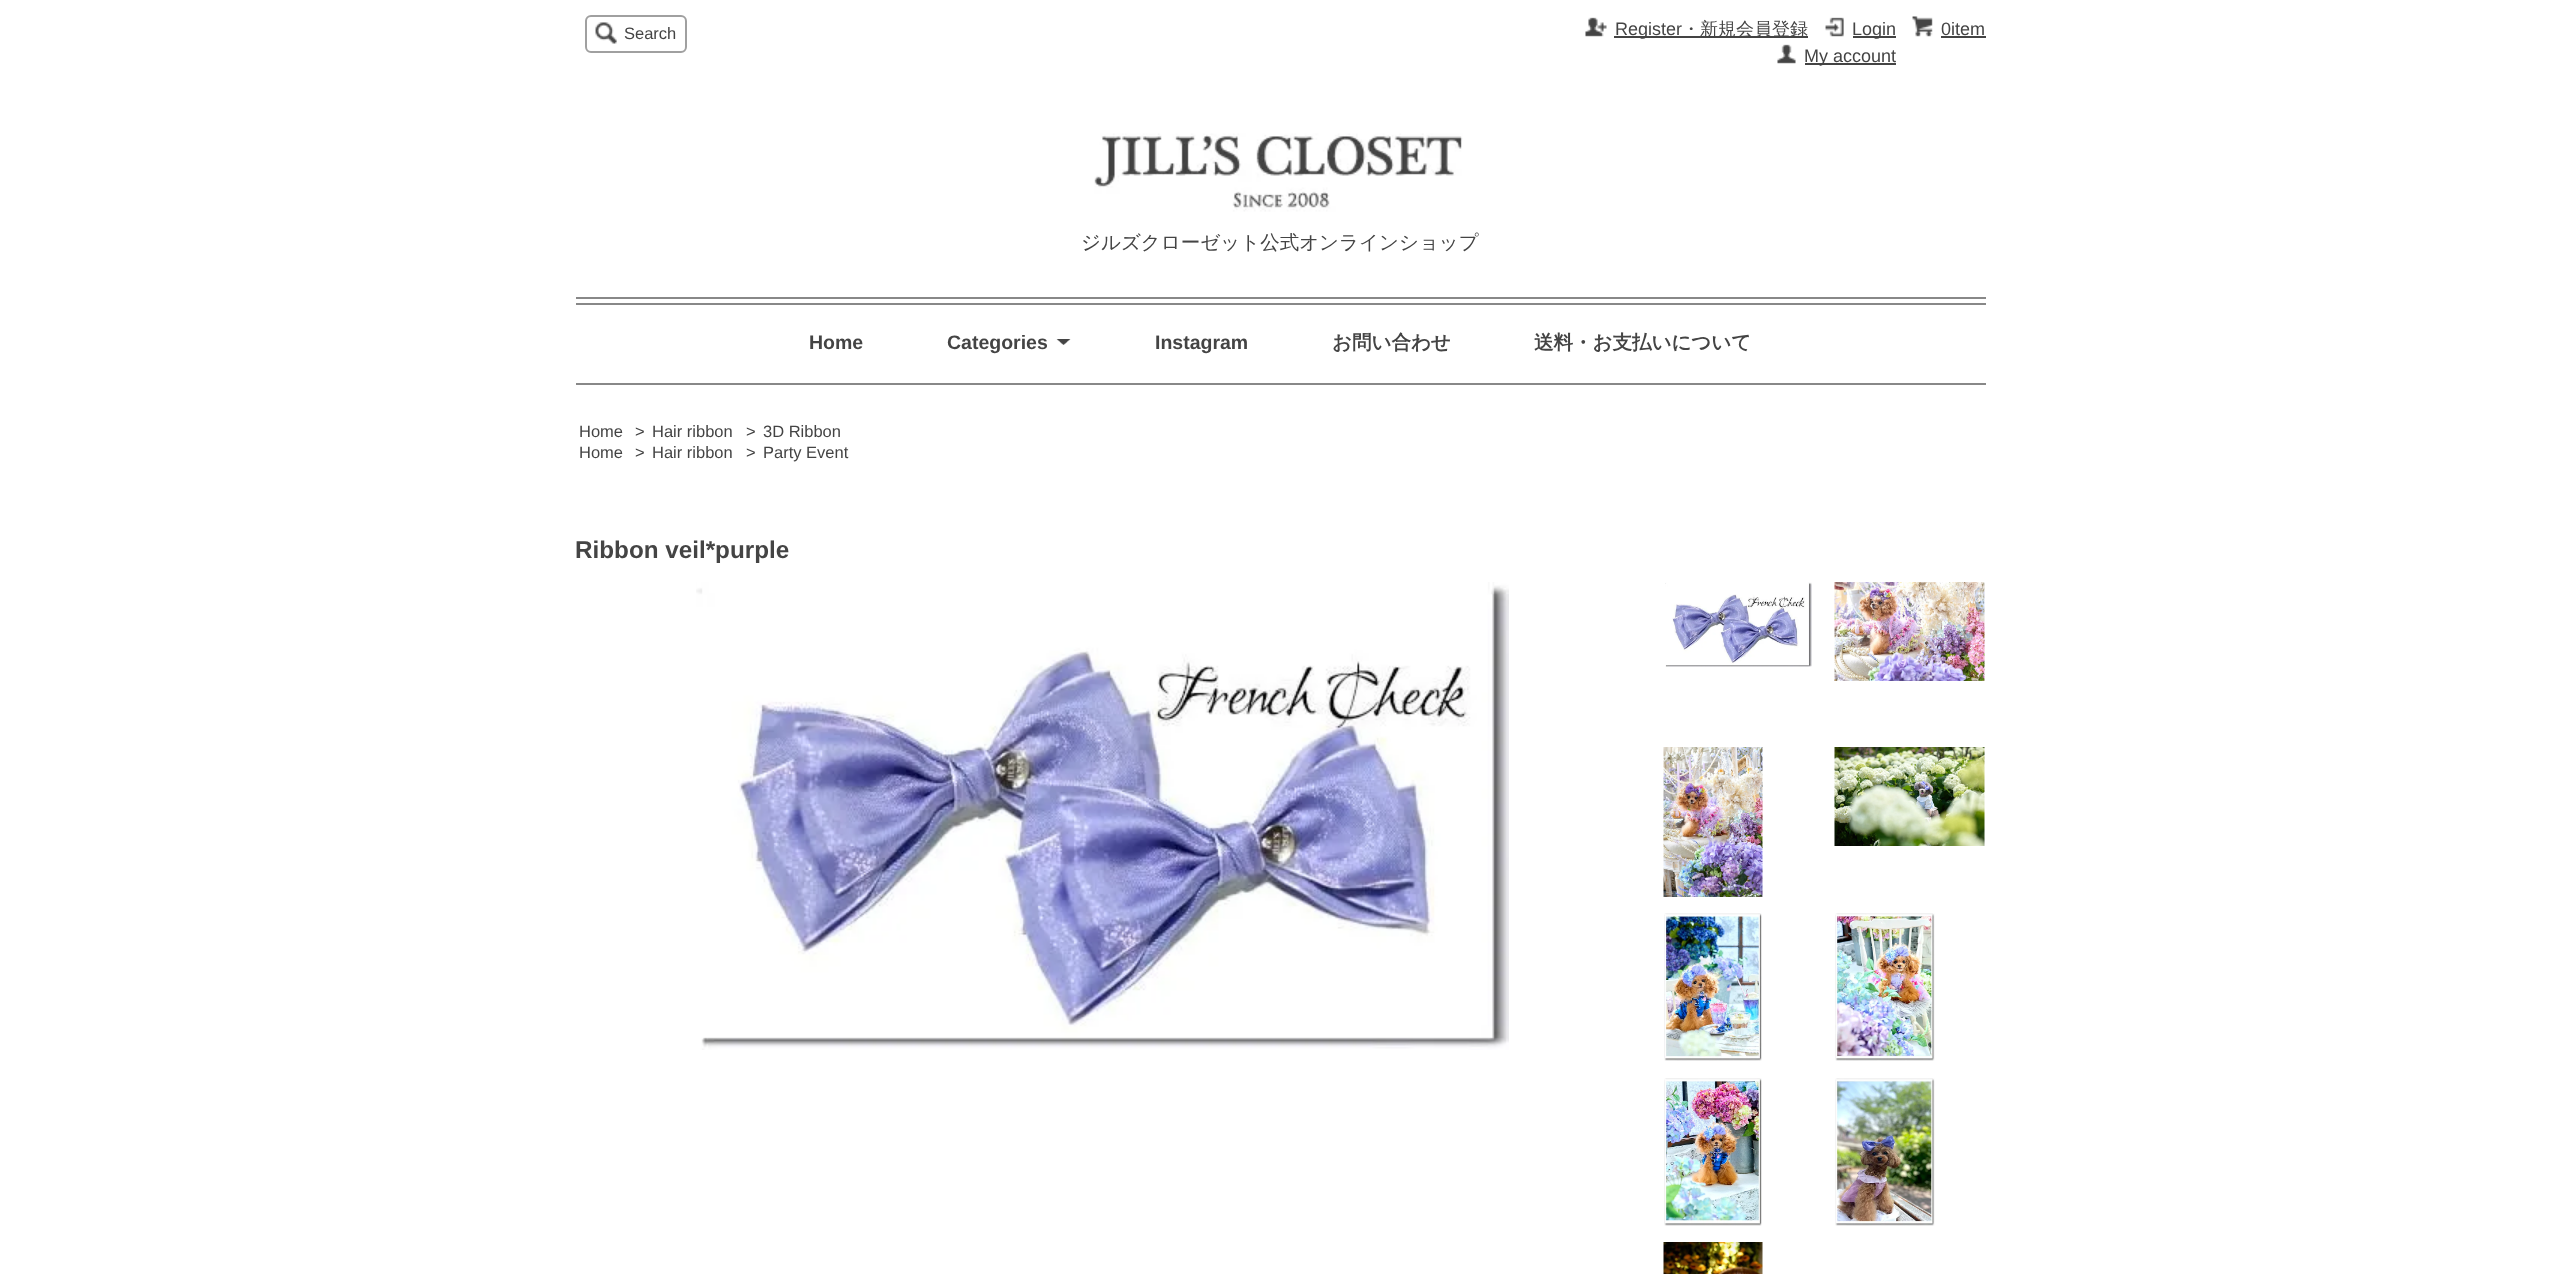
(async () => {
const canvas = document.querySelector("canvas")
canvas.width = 2560
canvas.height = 1274
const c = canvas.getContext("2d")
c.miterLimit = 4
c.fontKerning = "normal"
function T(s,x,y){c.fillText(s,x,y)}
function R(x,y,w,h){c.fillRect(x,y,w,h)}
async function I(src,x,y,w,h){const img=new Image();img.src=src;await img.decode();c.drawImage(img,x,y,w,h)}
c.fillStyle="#fff"
R(0,0,2560,1274)
c.beginPath()
c.roundRect(586,16,100,36,5)
c.strokeStyle="#a0a0a0"
c.lineWidth=2
c.stroke()
await I("1.png",595,22,22,22)
c.font="16.5px Liberation Sans"
c.fillStyle="#444"
T("Search",624,39)
await I("2.png",1585,17,22,20)
R(1614,36,194,2)
c.font="18px Liberation Sans"
T("Register",1615,35)
c.font="500 18px WenQuanYi Zen Hei"
T("・新規会員登録",1682,35)
await I("3.png",1825,17,19,20)
R(1853,36,43,2)
c.font="18px Liberation Sans"
T("Login",1852,35)
await I("4.png",1777,44,19,20)
R(1805,63,91,2)
T("My account",1804,62)
await I("5.png",1912,16,21,21)
T("0item",1941,35)
R(1941,36,45,2)
c.fillStyle="#888"
R(576,297,1410,2)
await I("6.png",1094,133,369,79)
c.font="500 19.5px WenQuanYi Zen Hei"
c.fillStyle="#444"
T("ジルズクローゼット公式オンラインショップ",1081,249)
c.fillStyle="#888"
R(576,303,1410,2)
R(576,383,1410,2)
c.font="bold 19.5px Liberation Sans"
c.fillStyle="#444"
T("Home",809,349)
T("Categories",947,349)
await I("7.png",1056,339,15,6)
T("Instagram",1155,349)
c.font="bold 19.5px WenQuanYi Zen Hei"
T("お問い合わせ",1332,349)
T("送料・お支払いについて",1534,349)
c.font="16.5px Liberation Sans"
T("Home",579,437)
T(">",635,437)
T("Hair ribbon",652,437)
T(">",746,437)
T("3D Ribbon",763,437)
T("Home",579,458)
T(">",635,458)
T("Hair ribbon",652,458)
T(">",746,458)
T("Party Event",763,458)
c.font="bold 24.25px Liberation Sans"
T("Ribbon veil*purple",575,558)
await I("8.png",696,582,813,468)
await I("9.png",1665,582,147,85)
await I("10.png",1834,582,151,99)
await I("11.png",1663,747,100,150)
await I("12.png",1834,747,151,99)
await I("13.png",1664,913,98,148)
await I("14.png",1835,913,100,148)
await I("15.png",1664,1078,98,148)
await I("16.png",1835,1078,100,148)
await I("17.png",1663,1242,100,32)
})()
